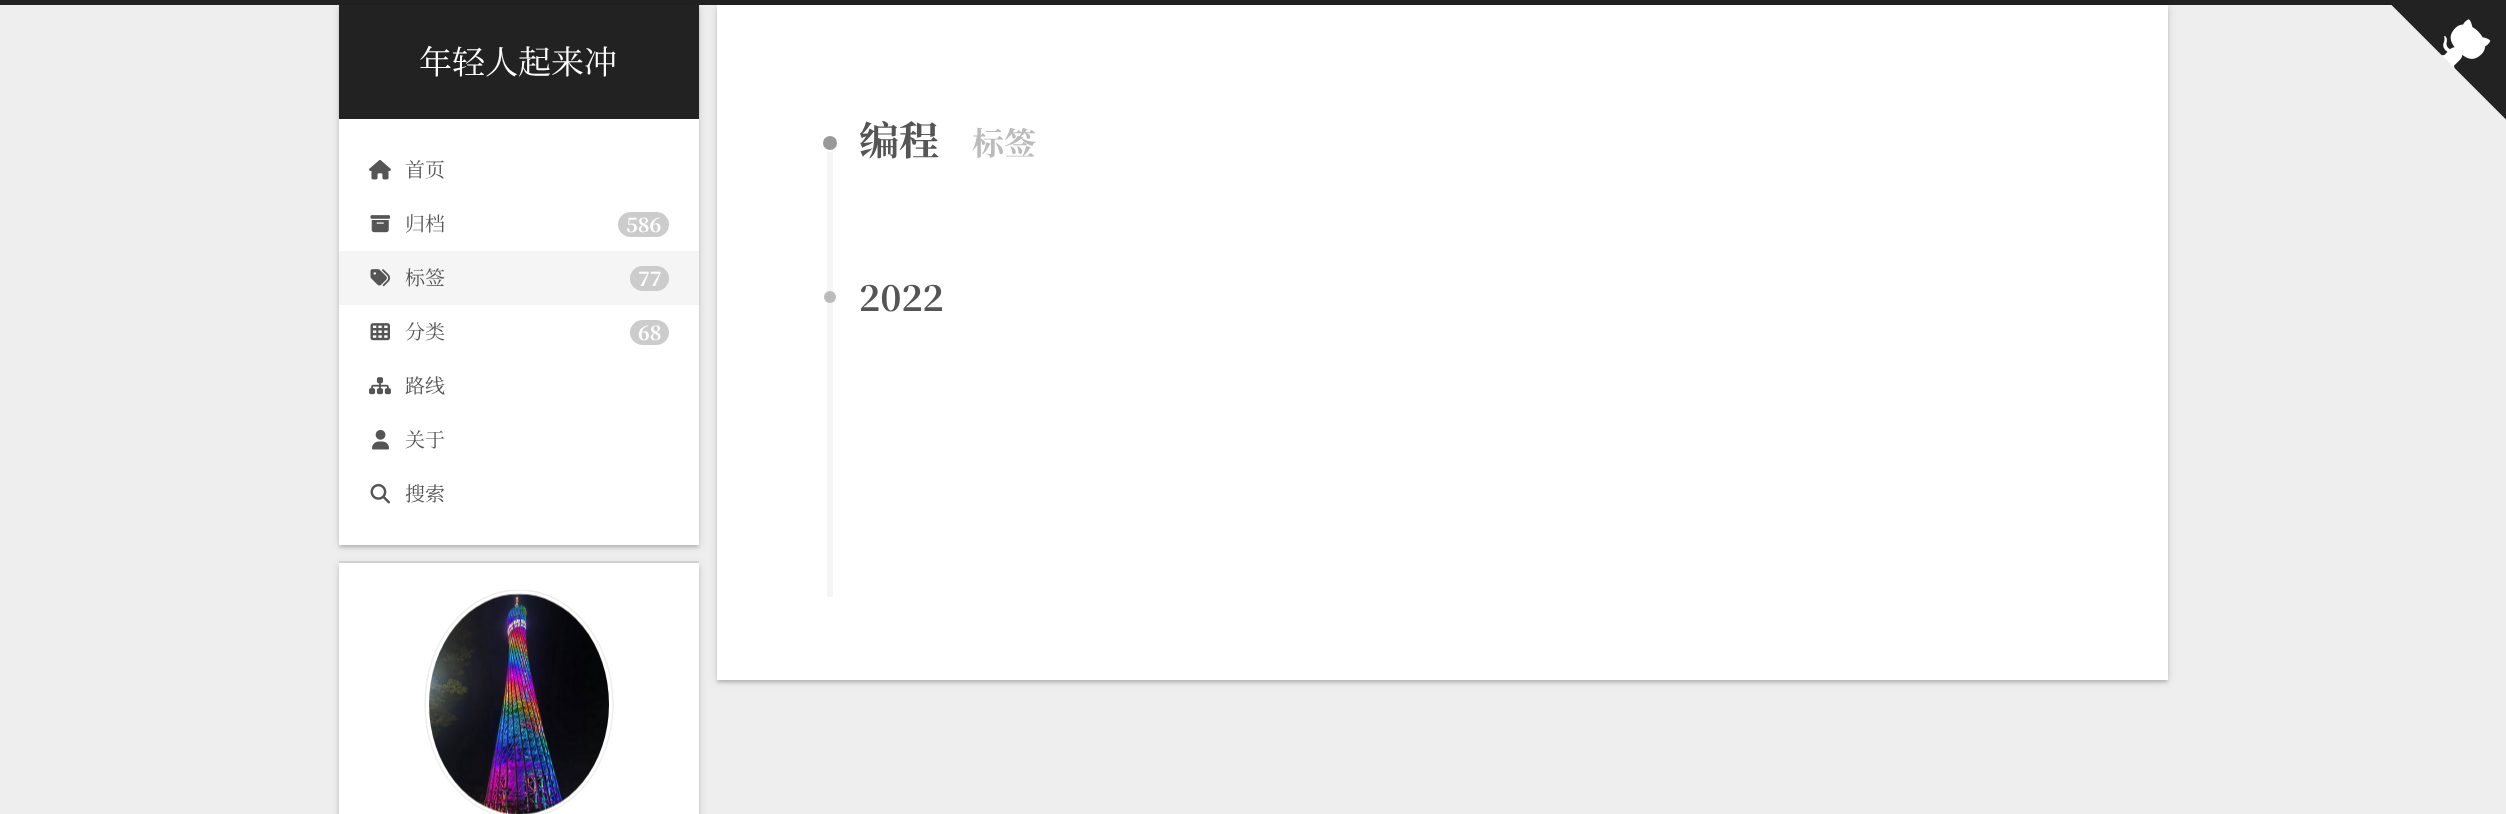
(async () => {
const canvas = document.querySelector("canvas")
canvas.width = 2506
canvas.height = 814
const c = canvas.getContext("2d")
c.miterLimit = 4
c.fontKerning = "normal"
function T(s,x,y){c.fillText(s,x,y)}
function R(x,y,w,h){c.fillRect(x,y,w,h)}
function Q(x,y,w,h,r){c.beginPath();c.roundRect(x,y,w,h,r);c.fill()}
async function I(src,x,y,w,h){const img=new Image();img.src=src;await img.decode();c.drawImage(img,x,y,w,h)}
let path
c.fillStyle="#eee"
R(0,0,2506,814)
c.fillStyle="#222"
R(0,0,2506,5)
c.fillStyle="#0000001f"
c.filter="blur(4px)"
c.beginPath()
c.rect(339,6,360,540)
c.fill()
c.filter="none"
c.fillStyle="#0000000f"
c.filter="blur(1px)"
c.beginPath()
c.rect(342,12,354,534)
c.fill()
c.filter="none"
c.fillStyle="#0000001f"
c.filter="blur(1.5px)"
c.beginPath()
c.rect(339,8,360,540)
c.fill()
c.filter="none"
c.fillStyle="#fff"
R(339,119,360,426)
c.fillStyle="#222"
R(339,5,360,114)
c.font="33px Noto Serif SC"
c.fillStyle="#fff"
T("年轻人起来冲",419,74)
await I("1.png",369,160,22,20)
c.font="20px Noto Serif SC"
c.fillStyle="#555"
T("首页",405,177)
await I("2.png",370,215,20,18)
T("归档",405,231)
c.fillStyle="#ccc"
Q(618,212,51,25,12.5)
c.font="bold 20px Noto Serif SC"
c.fillStyle="#fff"
T("586",626,232)
c.fillStyle="#f5f5f5"
R(339,251,360,54)
await I("3.png",370,269,20,18)
c.font="20px Noto Serif SC"
c.fillStyle="#555"
T("标签",405,285)
c.fillStyle="#ccc"
Q(630,266,39,25,12.5)
c.font="bold 20px Noto Serif SC"
c.fillStyle="#fff"
T("77",638,286)
await I("4.png",370,323,20,18)
c.font="20px Noto Serif SC"
c.fillStyle="#555"
T("分类",405,339)
c.fillStyle="#ccc"
Q(630,320,39,25,12.5)
c.font="bold 20px Noto Serif SC"
c.fillStyle="#fff"
T("68",638,340)
await I("5.png",369,377,22,18)
c.font="20px Noto Serif SC"
c.fillStyle="#555"
T("路线",405,393)
await I("6.png",372,429,17,21)
T("关于",405,447)
await I("7.png",370,483,20,21)
T("搜索",405,501)
c.fillStyle="#00000017"
c.filter="blur(0.5px)"
c.beginPath()
c.rect(339,561,360,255)
c.fill()
c.filter="none"
c.fillStyle="#0000001f"
c.filter="blur(4px)"
c.beginPath()
c.rect(339,564,360,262)
c.fill()
c.filter="none"
c.filter="blur(1.5px)"
c.beginPath()
c.rect(339,566,360,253)
c.fill()
c.filter="none"
c.fillStyle="#fff"
R(339,563,360,251)
c.save()
c.beginPath()
c.rect(354,590,330,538)
c.clip()
path = new Path2D("M519 590c52 0 94 51.5 94 114c0 63-42 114-94 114c-52 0-94-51-94-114c0-62.5 42-114 94-114z")
c.strokeStyle="#eee"
c.lineWidth=1.5
c.stroke(path)
c.restore()
await I("8.png",429,593,180,221)
c.fillStyle="#0000001f"
c.filter="blur(4px)"
c.beginPath()
c.rect(717,6,1451,675)
c.fill()
c.filter="none"
c.fillStyle="#0000000f"
c.filter="blur(1px)"
c.beginPath()
c.rect(720,12,1445,669)
c.fill()
c.filter="none"
c.fillStyle="#0000001f"
c.filter="blur(1.5px)"
c.beginPath()
c.rect(717,8,1451,675)
c.fill()
c.filter="none"
c.fillStyle="#fff"
R(717,5,1451,675)
c.fillStyle="#f5f5f5"
R(827,151,6,446)
c.fillStyle="#999"
c.beginPath()
c.arc(830,143,8,0,7)
c.fill()
c.strokeStyle="#fff"
c.lineWidth=2
c.stroke()
c.font="bold 40px Noto Serif SC"
c.fillStyle="#555"
T("编程",859,155)
c.font="bold 32px Noto Serif SC"
c.fillStyle="#bbb"
T("标签",972,155)
c.beginPath()
c.arc(830,297,6,0,7)
c.fill()
c.font="bold 36px Noto Serif SC"
c.fillStyle="#555"
T("2022",859,311)
await I("9.png",2391,5,115,115)
})()
